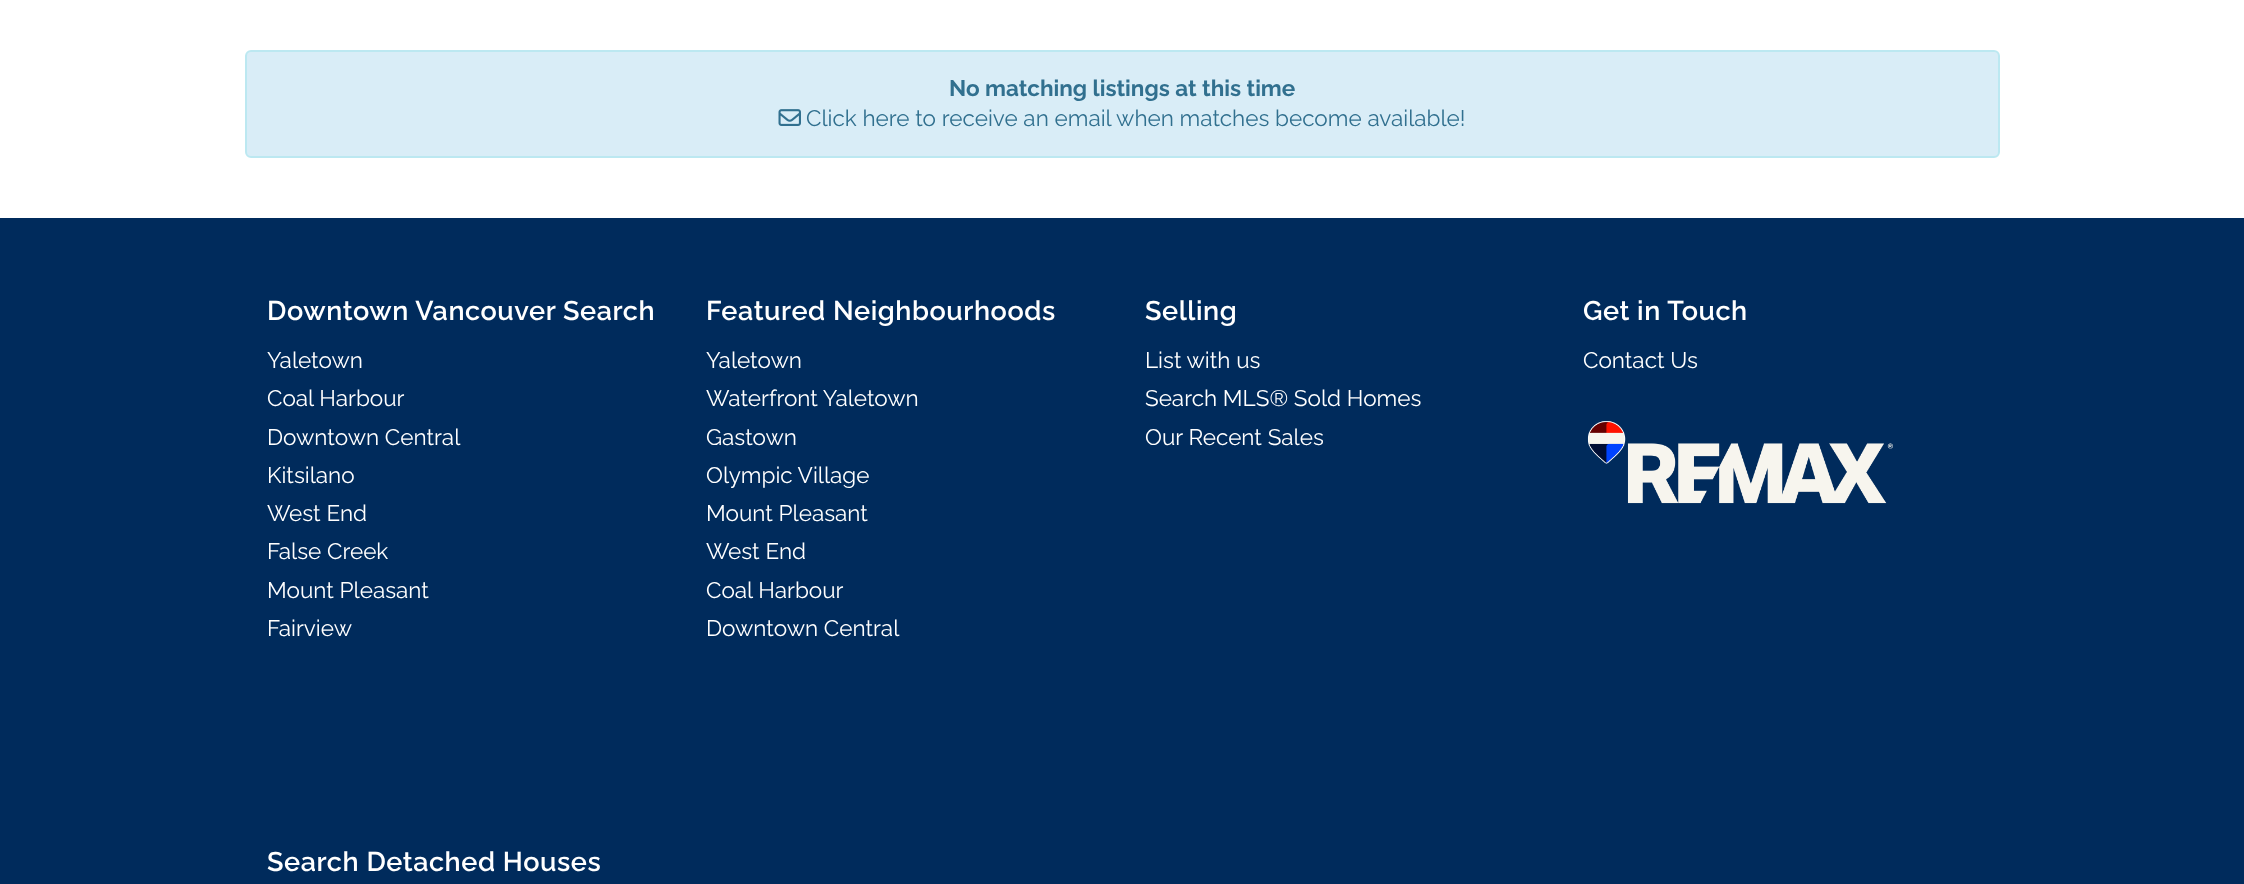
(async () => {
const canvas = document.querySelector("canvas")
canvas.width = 2244
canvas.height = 884
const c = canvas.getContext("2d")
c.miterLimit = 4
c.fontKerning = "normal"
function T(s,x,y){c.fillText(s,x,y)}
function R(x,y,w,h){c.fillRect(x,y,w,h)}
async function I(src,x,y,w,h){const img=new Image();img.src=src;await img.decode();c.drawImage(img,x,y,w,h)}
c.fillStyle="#fff"
R(0,0,2244,884)
c.fillStyle="#d9edf7"
c.beginPath()
c.roundRect(246,51,1753,106,5)
c.fill()
c.strokeStyle="#bce8f1"
c.lineWidth=2
c.stroke()
c.font="bold 22.5px Raleway"
c.fillStyle="#31708f"
T("No matching listings at this time",949,96)
await I("1.png",778,109,23,17)
c.font="22.5px Raleway"
T("Click here to receive an email when matches become available!",806,126)
c.fillStyle="#002b5c"
R(0,218,2244,666)
c.letterSpacing="0.55px"
c.font="600 27px Raleway"
c.fillStyle="#fff"
T("Downtown Vancouver Search",267,320)
c.letterSpacing="0px"
c.font="22.5px Raleway"
T("Yaletown",267,368)
T("Coal Harbour",267,406)
T("Downtown Central",267,445)
T("Kitsilano",267,483)
T("West End",267,521)
T("False Creek",267,559)
T("Mount Pleasant",267,598)
T("Fairview",267,636)
c.letterSpacing="0.55px"
c.font="600 27px Raleway"
T("Featured Neighbourhoods",706,320)
c.letterSpacing="0px"
c.font="22.5px Raleway"
T("Yaletown",706,368)
T("Waterfront Yaletown",706,406)
T("Gastown",706,445)
T("Olympic Village",706,483)
T("Mount Pleasant",706,521)
T("West End",706,559)
T("Coal Harbour",706,598)
T("Downtown Central",706,636)
c.letterSpacing="0.55px"
c.font="600 27px Raleway"
T("Selling",1145,320)
c.letterSpacing="0px"
c.font="22.5px Raleway"
T("List with us",1145,368)
T("Search MLS® Sold Homes",1145,406)
T("Our Recent Sales",1145,445)
c.letterSpacing="0.55px"
c.font="600 27px Raleway"
T("Get in Touch",1583,320)
c.letterSpacing="0px"
c.font="22.5px Raleway"
T("Contact Us",1583,368)
await I("2.png",1587,421,306,83)
c.letterSpacing="0.55px"
c.font="600 27px Raleway"
T("Search Detached Houses",267,871)
})()
